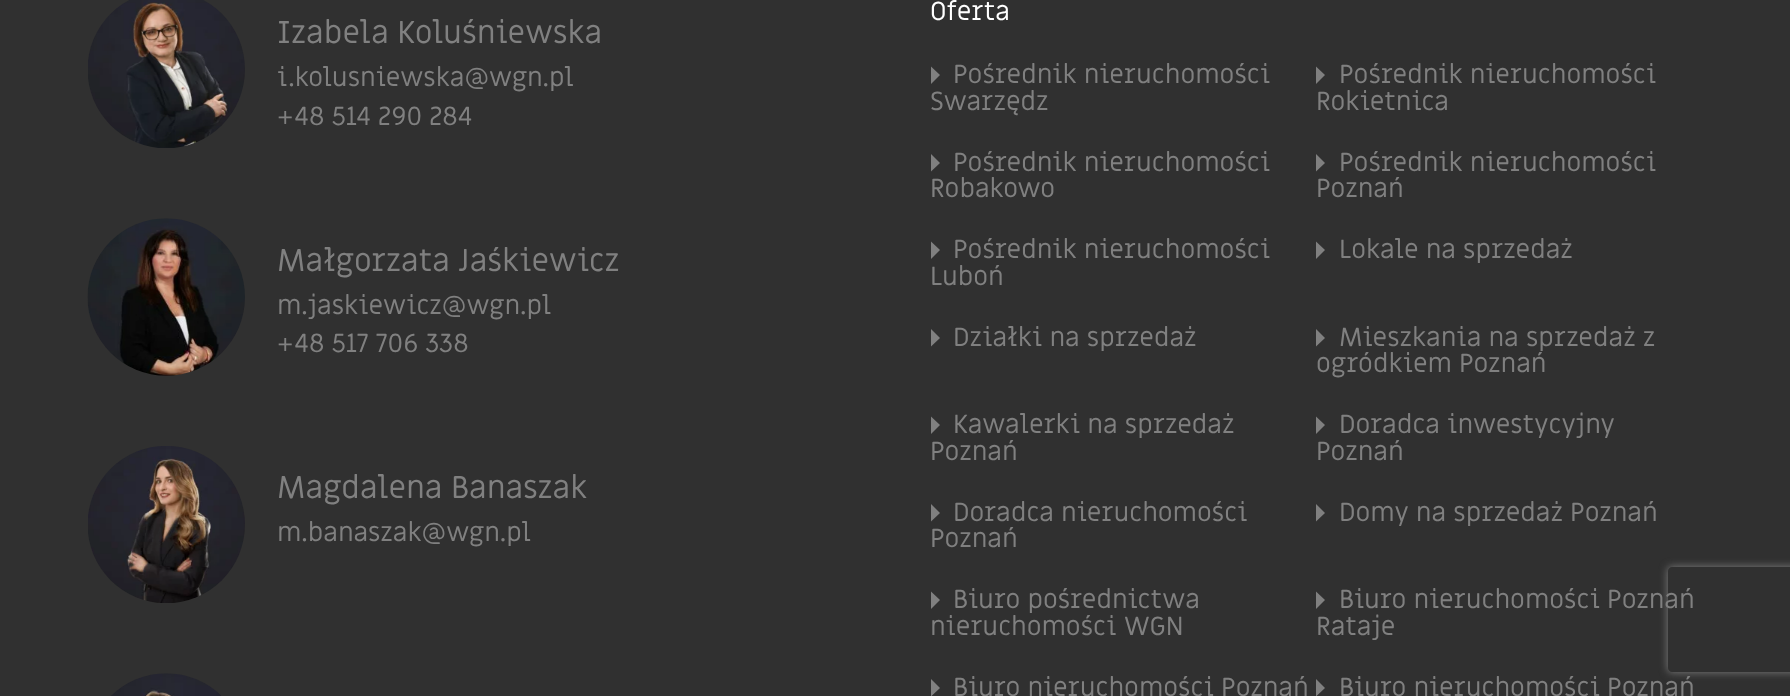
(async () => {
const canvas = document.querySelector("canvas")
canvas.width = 1790
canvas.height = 696
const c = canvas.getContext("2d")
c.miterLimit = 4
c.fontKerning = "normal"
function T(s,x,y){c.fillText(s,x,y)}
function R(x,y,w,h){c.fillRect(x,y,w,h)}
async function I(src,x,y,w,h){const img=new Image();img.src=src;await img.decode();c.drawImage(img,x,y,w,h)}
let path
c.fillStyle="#303030"
R(0,0,1790,696)
await I("1.png",88,0,157,148)
c.font="31.5px Miriam Libre"
c.fillStyle="#808080"
T("Izabela Koluśniewska",277,43)
c.font="26.25px Miriam Libre"
T("i.kolusniewska@wgn.pl",277,86)
T("+48 514 290 284",277,125)
await I("2.png",87,218,158,158)
c.font="31.5px Miriam Libre"
T("Małgorzata Jaśkiewicz",277,271)
c.font="26.25px Miriam Libre"
T("m.jaskiewicz@wgn.pl",277,314)
T("+48 517 706 338",277,352)
await I("3.png",88,446,157,157)
c.font="31.5px Miriam Libre"
T("Magdalena Banaszak",277,498)
c.font="26.25px Miriam Libre"
T("m.banaszak@wgn.pl",277,541)
await I("4.png",111,673,110,23)
c.fillStyle="#fff"
T("Oferta",930,20)
c.fillStyle="#808080"
path = new Path2D("M931 84v-17.5l9 8.5z")
c.fill(path)
T("Pośrednik nieruchomości",953,83)
T("Swarzędz",930,110)
path = new Path2D("M1316 84v-17.5l9 8.5z")
c.fill(path)
T("Pośrednik nieruchomości",1339,83)
T("Rokietnica",1316,110)
path = new Path2D("M931 171.5v-17.5l9 9z")
c.fill(path)
T("Pośrednik nieruchomości",953,171)
T("Robakowo",930,197)
path = new Path2D("M1316 171.5v-17.5l9 9z")
c.fill(path)
T("Pośrednik nieruchomości",1339,171)
T("Poznań",1316,197)
path = new Path2D("M931 259v-17.5l9 8.5z")
c.fill(path)
T("Pośrednik nieruchomości",953,258)
T("Luboń",930,285)
path = new Path2D("M1316 259v-17.5l9 8.5z")
c.fill(path)
T("Lokale na sprzedaż",1339,258)
path = new Path2D("M931 346.5v-17.5l9 9z")
c.fill(path)
T("Działki na sprzedaż",953,346)
path = new Path2D("M1316 346.5v-17.5l9 9z")
c.fill(path)
T("Mieszkania na sprzedaż z",1339,346)
T("ogródkiem Poznań",1316,372)
path = new Path2D("M931 434v-17.5l9 8.5z")
c.fill(path)
T("Kawalerki na sprzedaż",953,433)
T("Poznań",930,460)
path = new Path2D("M1316 434v-17.5l9 8.5z")
c.fill(path)
T("Doradca inwestycyjny",1339,433)
T("Poznań",1316,460)
path = new Path2D("M931 521.5v-17.5l9 9z")
c.fill(path)
T("Doradca nieruchomości",953,521)
T("Poznań",930,547)
path = new Path2D("M1316 521.5v-17.5l9 9z")
c.fill(path)
T("Domy na sprzedaż Poznań",1339,521)
path = new Path2D("M931 609v-17.5l9 8.5z")
c.fill(path)
T("Biuro pośrednictwa",953,608)
T("nieruchomości WGN",930,635)
path = new Path2D("M1316 609v-17.5l9 8.5z")
c.fill(path)
T("Biuro nieruchomości Poznań",1339,608)
T("Rataje",1316,635)
path = new Path2D("M931 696.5v-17.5l9 9z")
c.fill(path)
T("Biuro nieruchomości Poznań",953,696)
path = new Path2D("M1316 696.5v-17.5l9 9z")
c.fill(path)
T("Biuro nieruchomości Poznań",1339,696)
c.save()
path = new Path2D("M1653 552h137v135h-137zm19 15h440c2 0 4 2 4 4v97c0 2-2 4-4 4h-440c-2 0-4-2-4-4v-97c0-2 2-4 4-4z")
c.clip(path,"evenodd")
c.filter="blur(4.5px)"
c.beginPath()
c.roundRect(1668,567,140,105,4)
c.fill()
c.filter="none"
c.restore()
})()
